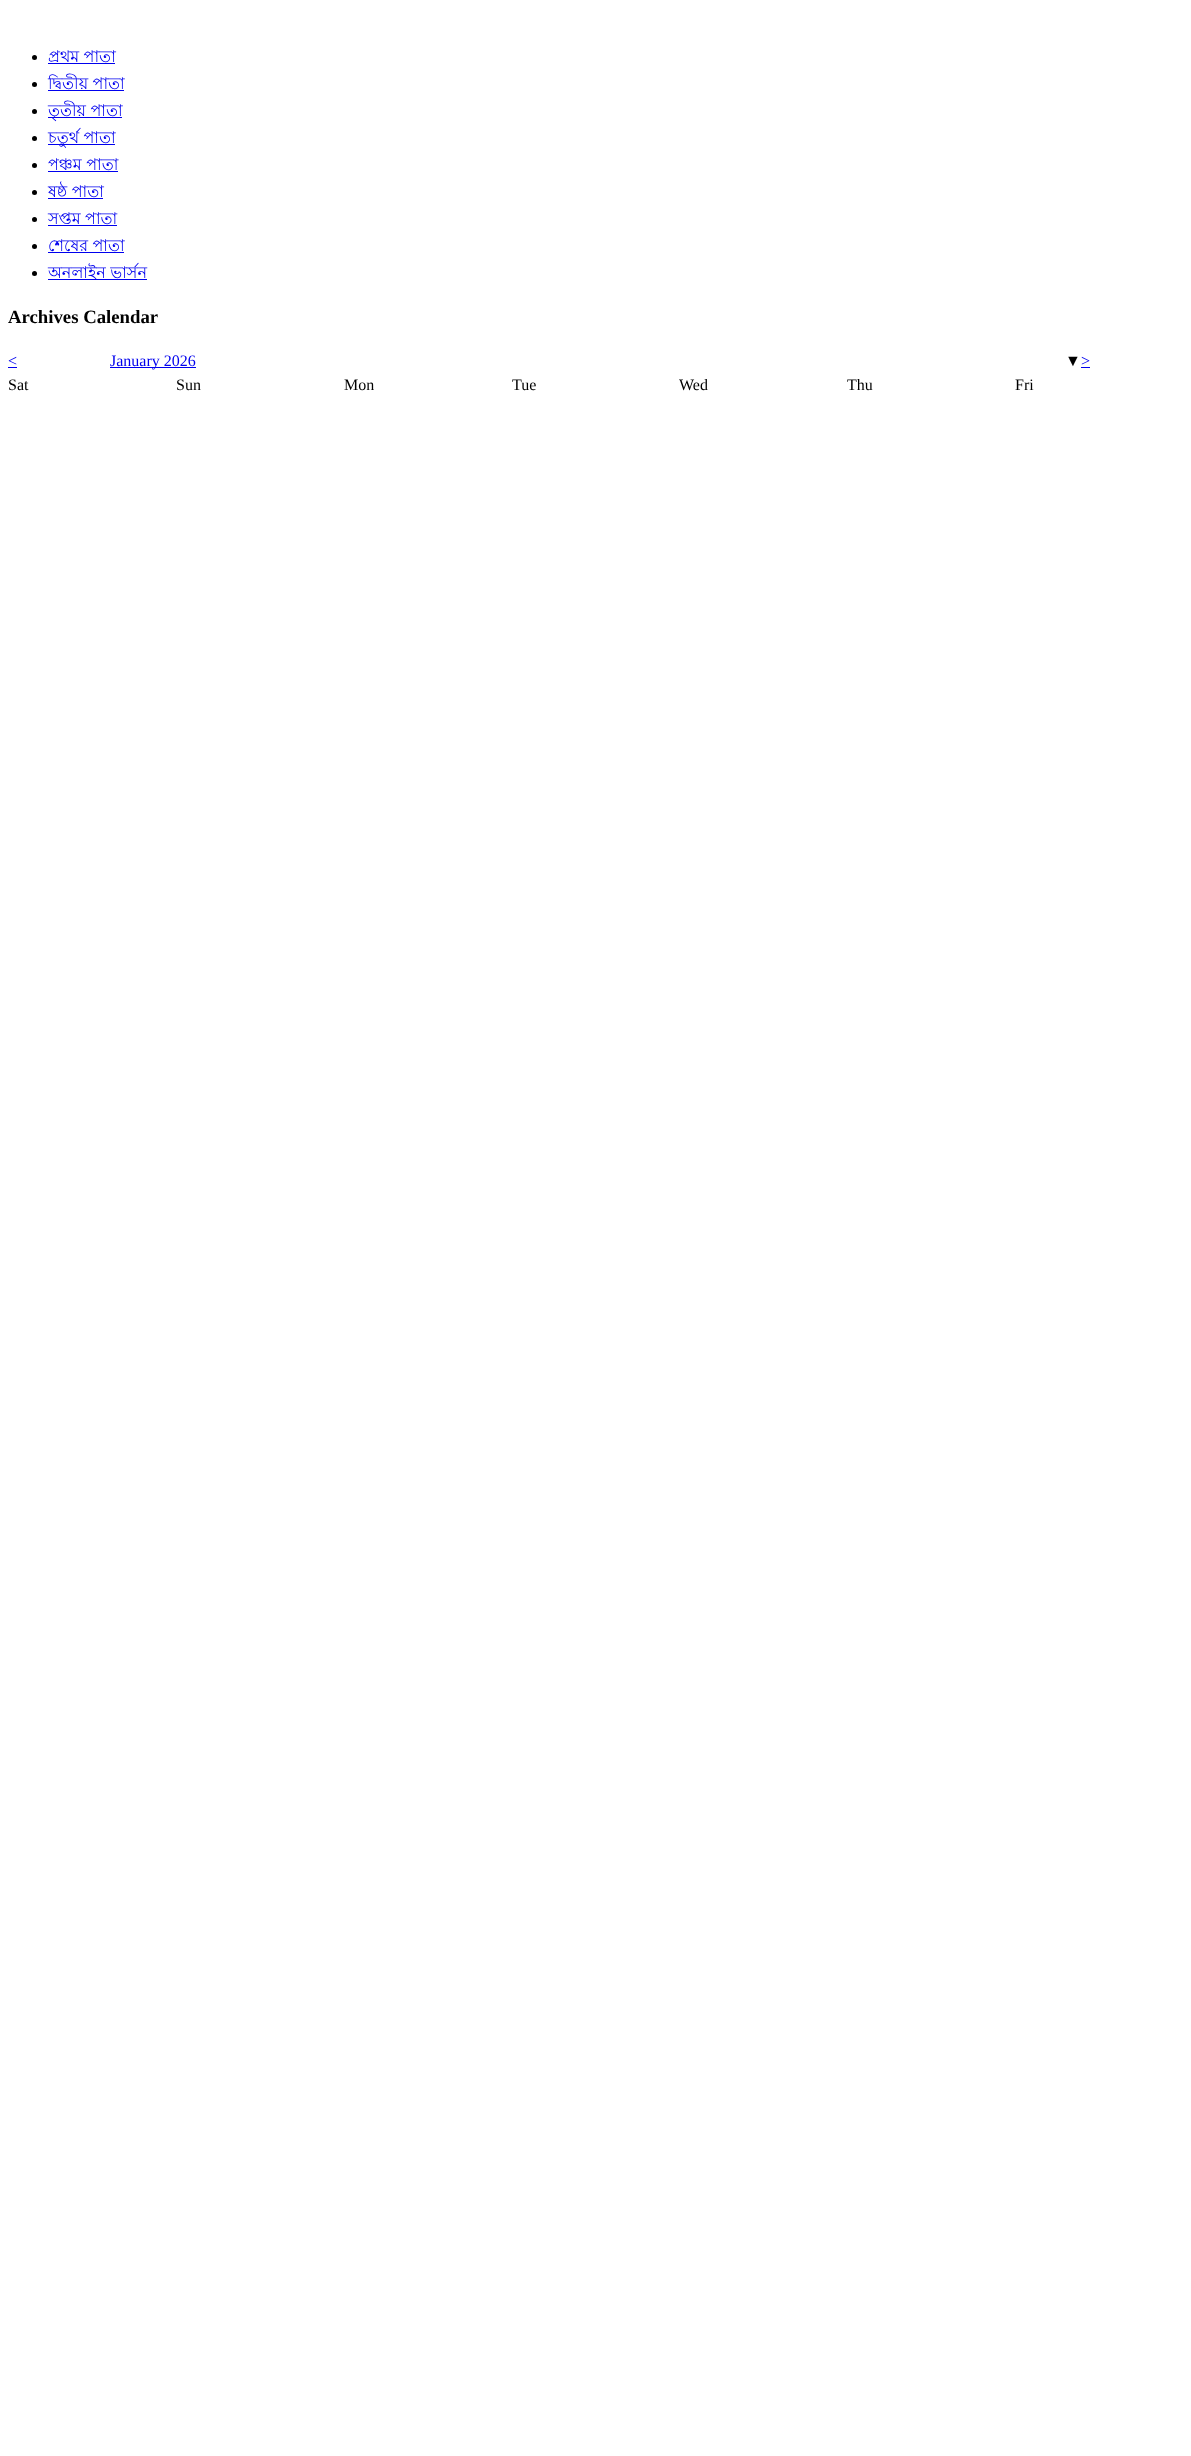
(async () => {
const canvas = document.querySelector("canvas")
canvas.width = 1191
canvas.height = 2456
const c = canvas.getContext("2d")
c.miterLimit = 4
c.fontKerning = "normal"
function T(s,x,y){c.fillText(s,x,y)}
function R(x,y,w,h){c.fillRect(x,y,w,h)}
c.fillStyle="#fff"
R(0,0,1191,2456)
c.fillStyle="#000"
c.beginPath()
c.arc(34.5,57.5,2.5,0,7)
c.fill()
c.font="16px Lohit Bengali"
c.fillStyle="#00e"
T("প্রথম পাতা",48,62)
R(48,63,67,1)
c.fillStyle="#000"
c.beginPath()
c.arc(34.5,84.5,2.5,0,7)
c.fill()
c.fillStyle="#00e"
T("দ্বিতীয় পাতা",48,89)
R(48,90,76,1)
c.fillStyle="#000"
c.beginPath()
c.arc(34.5,111.5,2.5,0,7)
c.fill()
c.fillStyle="#00e"
R(48,117,74,1)
T("তৃতীয় পাতা",48,116)
c.fillStyle="#000"
c.beginPath()
c.arc(34.5,138.5,2.5,0,7)
c.fill()
c.fillStyle="#00e"
R(48,144,67,1)
T("চতুর্থ পাতা",48,143)
c.fillStyle="#000"
c.beginPath()
c.arc(34.5,165.5,2.5,0,7)
c.fill()
c.fillStyle="#00e"
T("পঞ্চম পাতা",48,170)
R(48,171,70,1)
c.fillStyle="#000"
c.beginPath()
c.arc(34.5,192.5,2.5,0,7)
c.fill()
c.fillStyle="#00e"
T("ষষ্ঠ পাতা",48,197)
R(48,198,55,1)
c.fillStyle="#000"
c.beginPath()
c.arc(34.5,219.5,2.5,0,7)
c.fill()
c.fillStyle="#00e"
T("সপ্তম পাতা",48,224)
R(48,225,69,1)
c.fillStyle="#000"
c.beginPath()
c.arc(34.5,246.5,2.5,0,7)
c.fill()
c.fillStyle="#00e"
T("শেষের পাতা",48,251)
R(48,252,76,1)
c.fillStyle="#000"
c.beginPath()
c.arc(34.5,273.5,2.5,0,7)
c.fill()
c.fillStyle="#00e"
R(48,279,99,1)
T("অনলাইন ভার্সন",48,278)
c.font="bold 18.75px Liberation Serif"
c.fillStyle="#000"
T("Archives Calendar",8,323)
c.font="16px Liberation Serif"
c.fillStyle="#00e"
T("<",8,366)
R(8,367,9,1)
R(110,367,86,1)
T("January 2026",110,366)
c.font="16px Liberation Sans"
c.fillStyle="#000"
T("▼",1065,366)
c.font="16px Liberation Serif"
c.fillStyle="#00e"
T(">",1081,366)
R(1081,367,9,1)
c.fillStyle="#000"
T("Sat",8,390)
T("Sun",176,390)
T("Mon",344,390)
c.save()
c.beginPath()
c.rect(512,376,167,18)
c.clip()
T("Tue",512,390)
c.restore()
T("Wed",679,390)
T("Thu",847,390)
T("Fri",1015,390)
})()
